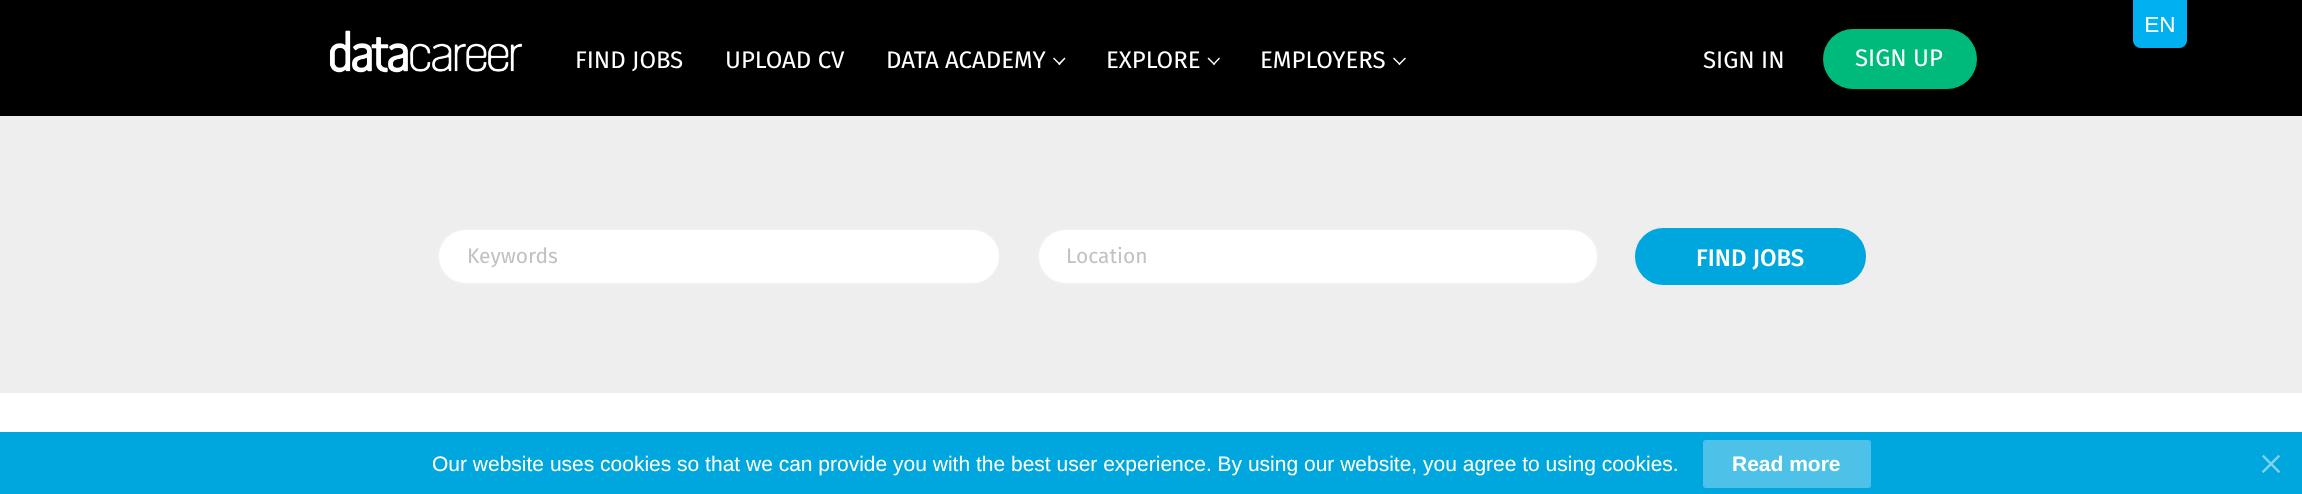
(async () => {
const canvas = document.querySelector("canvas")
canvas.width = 2302
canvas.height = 494
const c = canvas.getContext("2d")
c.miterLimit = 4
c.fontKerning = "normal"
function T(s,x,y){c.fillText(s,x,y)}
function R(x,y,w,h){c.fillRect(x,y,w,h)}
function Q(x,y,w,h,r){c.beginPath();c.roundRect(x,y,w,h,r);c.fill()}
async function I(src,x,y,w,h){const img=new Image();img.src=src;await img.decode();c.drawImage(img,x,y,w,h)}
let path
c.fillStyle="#fff"
R(0,0,2302,494)
c.fillStyle="#000"
R(0,0,2302,116)
await I("1.png",2133,0,54,48)
await I("2.png",329,30,193,43)
c.font="24px Fira Sans"
c.fillStyle="#fff"
T("FIND JOBS",575,68)
T("UPLOAD CV",725,68)
T("DATA ACADEMY",886,68)
path = new Path2D("M1065.5 58.5l-6 6.5l-1.5-1l6.5-6.5z")
c.fill(path)
path = new Path2D("M1060.5 64l-1 1l-6.5-6.5l1-1z")
c.fill(path)
T("EXPLORE",1106,68)
path = new Path2D("M1220 58.5l-6 6.5l-1-1l6-6.5z")
c.fill(path)
path = new Path2D("M1215 64l-1 1l-6.5-6.5l1-1z")
c.fill(path)
T("EMPLOYERS",1260,68)
path = new Path2D("M1406 58.5l-6.5 6.5l-1-1l6.5-6.5z")
c.fill(path)
path = new Path2D("M1400.5 64l-1 1l-6.5-6.5l1-1z")
c.fill(path)
T("SIGN IN",1703,68)
c.fillStyle="#00ba7c"
Q(1823,29,154,60,30)
c.fillStyle="#fff"
T("SIGN UP",1855,66)
c.fillStyle="#eee"
R(0,116,2302,277)
c.fillStyle="#fff"
c.beginPath()
c.roundRect(438,229,562,55,27.5)
c.fill()
c.strokeStyle="#f0f0f0"
c.lineWidth=2
c.stroke()
c.font="21px Fira Sans"
c.fillStyle="#c1c1c1"
T("Keywords",467,263)
c.fillStyle="#fff"
c.beginPath()
c.roundRect(1038,229,560,55,27.5)
c.fill()
c.stroke()
c.fillStyle="#c1c1c1"
T("Location",1066,263)
c.fillStyle="#00a7de"
c.beginPath()
c.roundRect(1636,229,229,55,27.5)
c.fill()
c.strokeStyle="#00a7de"
c.stroke()
c.font="500 24px Fira Sans"
c.fillStyle="#fff"
T("FIND JOBS",1696,266)
c.fillStyle="#00a7de"
R(0,432,2302,62)
c.font="21px Liberation Sans"
c.fillStyle="#fff"
T("Our website uses cookies so that we can provide you with the best user experience. By using our website, you agree to using cookies.",432,471)
c.fillStyle="#4dc1e8"
Q(1703,440,168,48,3)
c.font="bold 21px Liberation Sans"
c.fillStyle="#fff"
T("Read more",1732,471)
await I("3.png",2261,454,20,19)
})()
